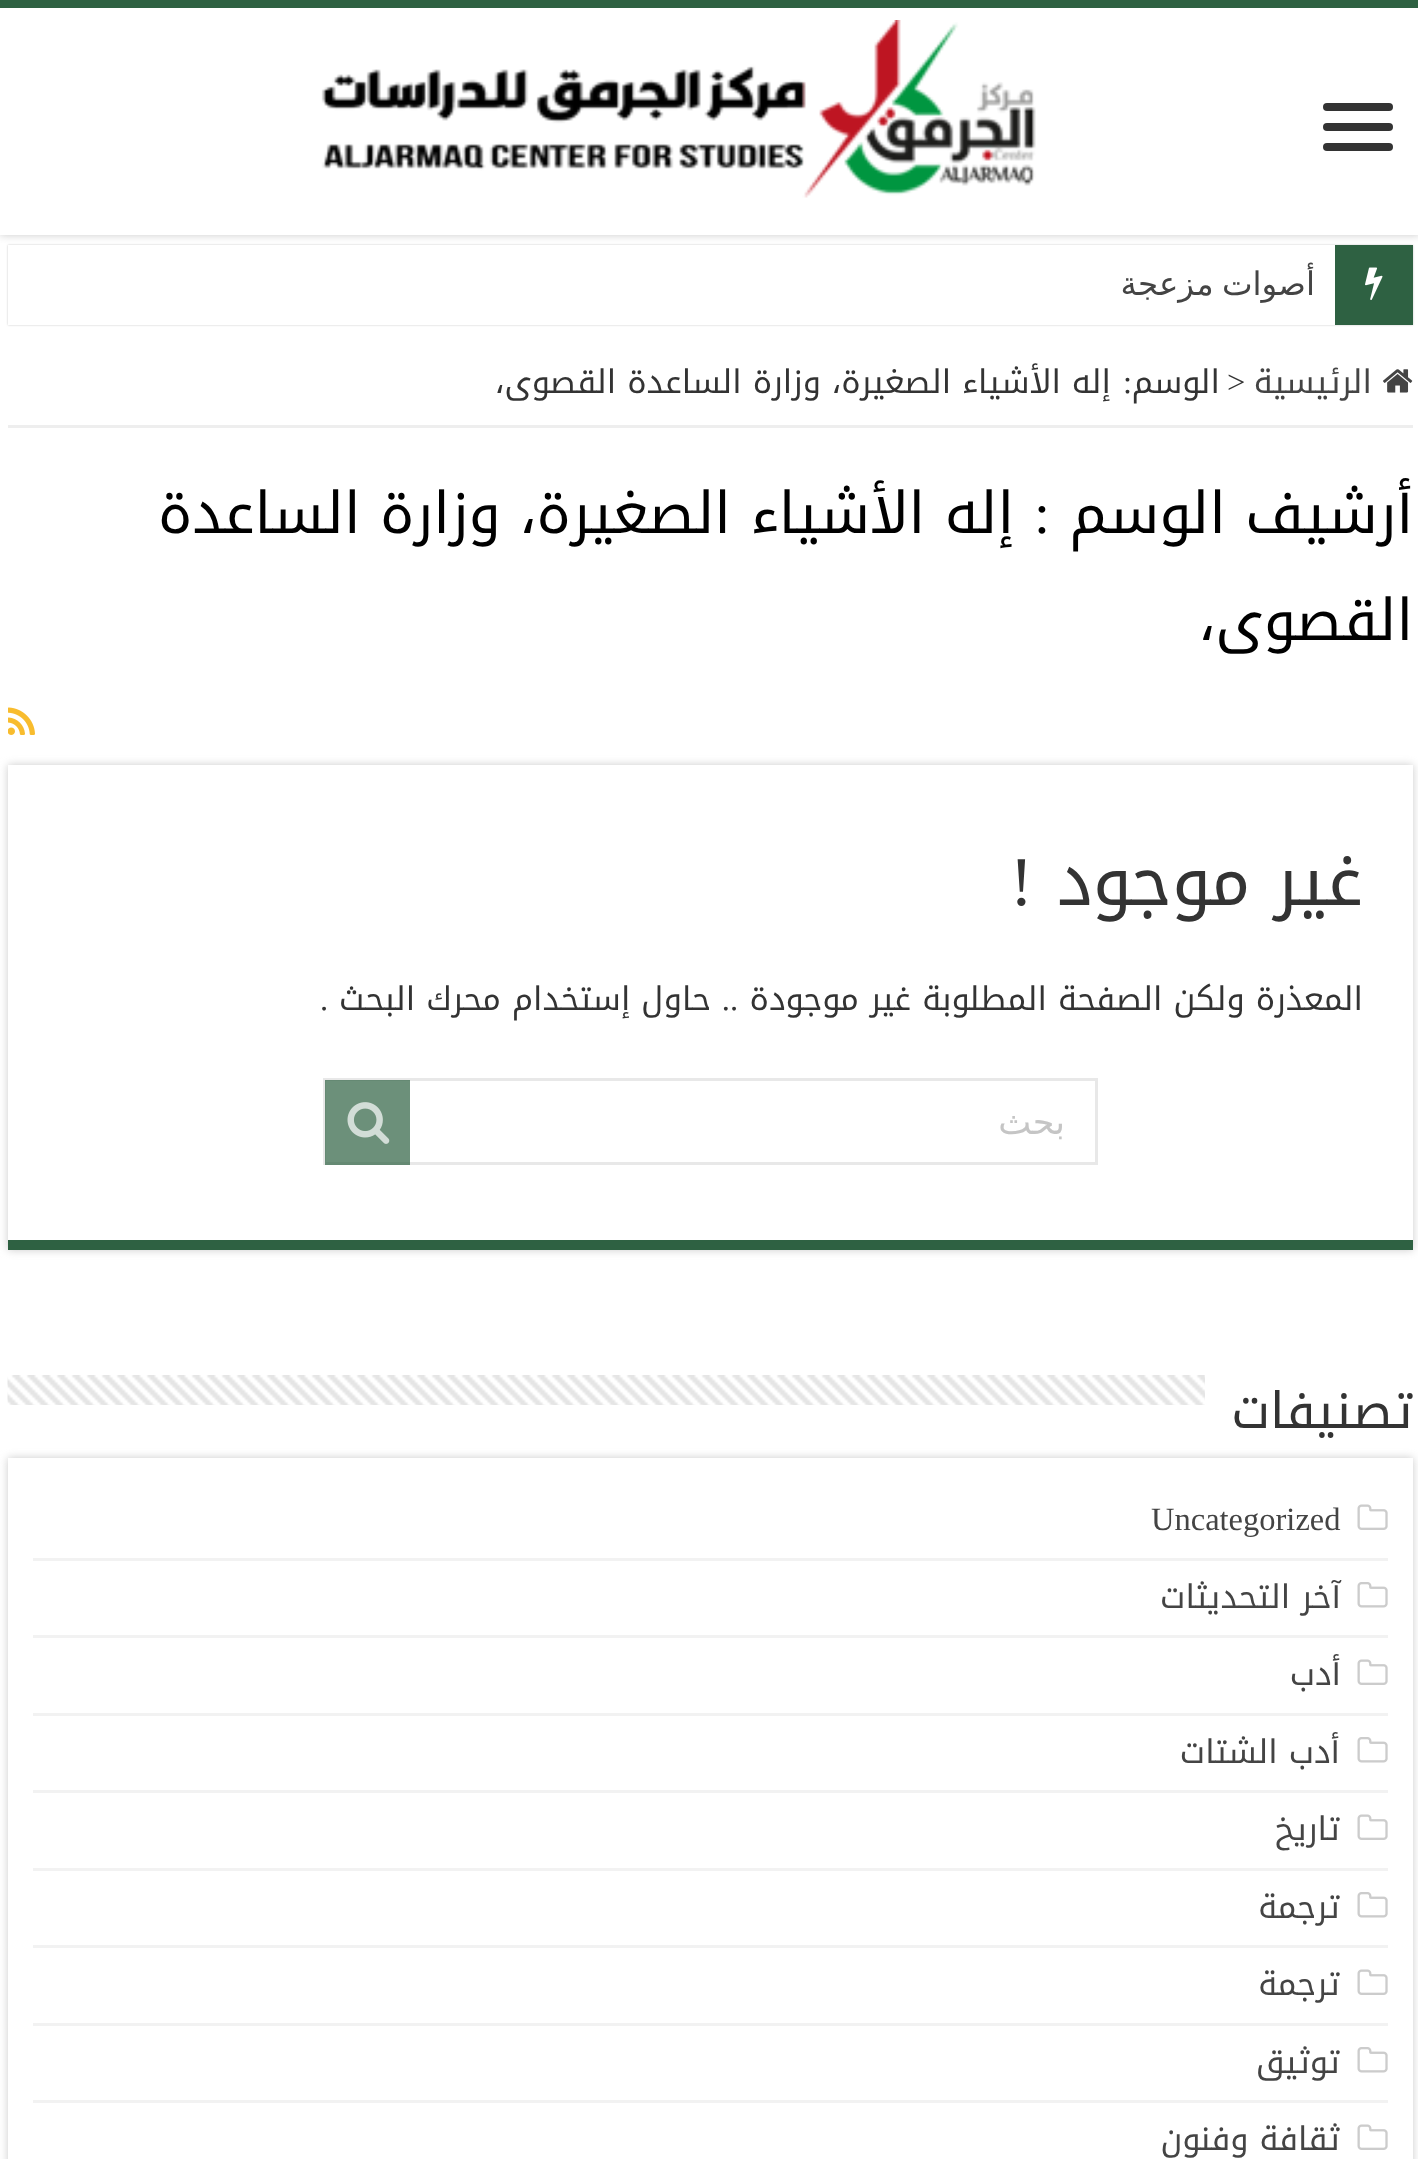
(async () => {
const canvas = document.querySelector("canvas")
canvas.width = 1418
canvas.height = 2159
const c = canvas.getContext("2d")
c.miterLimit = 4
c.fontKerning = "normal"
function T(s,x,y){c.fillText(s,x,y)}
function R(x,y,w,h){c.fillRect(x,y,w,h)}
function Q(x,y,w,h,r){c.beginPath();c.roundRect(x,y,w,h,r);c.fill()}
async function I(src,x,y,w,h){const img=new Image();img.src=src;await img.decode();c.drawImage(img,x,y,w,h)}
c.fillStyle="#fff"
R(0,0,1418,2159)
c.save()
c.beginPath()
c.rect(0,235,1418,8)
c.clip()
c.fillStyle="#cacaca"
c.filter="blur(4px)"
c.beginPath()
c.rect(0,0,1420,235)
c.fill()
c.filter="none"
c.restore()
c.fillStyle="#2e6142"
R(0,0,1418,8)
c.fillStyle="#333"
Q(1323,103,70,8,4)
Q(1323,123,70,8,4)
Q(1323,143,70,8,4)
await I("1.png",321,20,715,178)
c.fillStyle="#cacaca"
c.filter="blur(1px)"
c.beginPath()
c.rect(8,245,1405,80)
c.fill()
c.filter="none"
c.fillStyle="#fff"
R(8,245,1327,80)
c.fillStyle="#2e6142"
R(1335,245,78,80)
await I("2.png",1365,267,18,33)
c.wordSpacing="-2px"
c.direction="rtl"
c.font="32.5px DejaVu Sans"
c.fillStyle="#444"
T("أصوات مزعجة",1315,295)
c.fillStyle="#eee"
R(8,425,1405,3)
await I("3.png",1383,369,30,24)
c.wordSpacing="0px"
c.font="32.5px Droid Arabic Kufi"
c.fillStyle="#444"
T("الرئيسية",1372,393)
c.direction="ltr"
c.font="32.5px Liberation Serif"
c.fillStyle="#333"
T(">",1227,393)
c.direction="rtl"
c.font="32.5px Droid Arabic Kufi"
T("الوسم",1220,393)
c.font="32.5px Liberation Serif"
T(":",1132,393)
c.font="32.5px Droid Arabic Kufi"
T("إله الأشياء الصغيرة، وزارة الساعدة القصوى،",1111,393)
c.font="57.5px Droid Arabic Kufi"
c.fillStyle="#000"
T("أرشيف الوسم",1413,533)
c.font="57.5px Liberation Serif"
T(":",1050,533)
c.font="57.5px Droid Arabic Kufi"
T("إله الأشياء الصغيرة، وزارة الساعدة",1014,533)
T("القصوى،",1413,640)
await I("4.png",8,707,27,28)
c.fillStyle="#cacaca"
c.filter="blur(4px)"
c.beginPath()
c.rect(8,765,1405,485)
c.fill()
c.filter="none"
c.fillStyle="#fff"
R(8,765,1405,475)
c.fillStyle="#2e6142"
R(8,1240,1405,10)
c.font="70px Droid Arabic Kufi"
c.fillStyle="#333"
T("غير موجود",1363,905)
c.font="70px Liberation Serif"
T("!",1033,905)
c.font="32.5px Droid Arabic Kufi"
T("المعذرة ولكن الصفحة المطلوبة غير موجودة",1363,1010)
c.font="32.5px Liberation Serif"
T("..",738,1010)
c.font="32.5px Droid Arabic Kufi"
T("حاول إستخدام محرك البحث",711,1010)
c.font="32.5px Liberation Serif"
T(".",328,1010)
c.strokeStyle="#e8e8e8"
c.lineWidth=3
c.strokeRect(324.5,1079.5,772,84)
c.font="35px DejaVu Sans"
c.fillStyle="#c5c5c5"
T("بحث",1065,1134)
c.fillStyle="#2e6142b3"
R(325,1080,85,85)
await I("5.png",347,1102,43,42)
c.font="50px Droid Arabic Kufi"
c.fillStyle="#333"
T("تصنيفات",1413,1428)
await I("6.png",7,1375,1198,30)
c.fillStyle="#cacaca"
c.filter="blur(4px)"
c.beginPath()
c.rect(8,1458,1405,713)
c.fill()
c.filter="none"
c.fillStyle="#fff"
R(8,1458,1405,701)
c.fillStyle="#f2f2f2"
R(33,1558,1355,3)
await I("7.png",1357,1504,31,26)
c.direction="ltr"
c.font="32.5px Liberation Serif"
c.fillStyle="#444"
T("Uncategorized",1151,1530)
c.fillStyle="#f2f2f2"
R(33,1635,1355,3)
await I("8.png",1357,1582,31,26)
c.direction="rtl"
c.font="32.5px Droid Arabic Kufi"
c.fillStyle="#444"
T("آخر التحديثات",1341,1608)
c.fillStyle="#f2f2f2"
R(33,1713,1355,3)
await I("7.png",1357,1659,31,26)
c.fillStyle="#444"
T("أدب",1341,1685)
c.fillStyle="#f2f2f2"
R(33,1790,1355,3)
await I("8.png",1357,1737,31,26)
c.fillStyle="#444"
T("أدب الشتات",1340,1763)
c.fillStyle="#f2f2f2"
R(33,1868,1355,3)
await I("7.png",1357,1814,31,26)
c.fillStyle="#444"
T("تاريخ",1340,1840)
c.fillStyle="#f2f2f2"
R(33,1945,1355,3)
await I("8.png",1357,1892,31,26)
c.fillStyle="#444"
T("ترجمة",1340,1918)
c.fillStyle="#f2f2f2"
R(33,2023,1355,3)
await I("7.png",1357,1969,31,26)
c.fillStyle="#444"
T("ترجمة",1340,1995)
c.fillStyle="#f2f2f2"
R(33,2100,1355,3)
await I("8.png",1357,2047,31,26)
c.fillStyle="#444"
T("توثيق",1340,2073)
await I("7.png",1357,2124,31,26)
T("ثقافة وفنون",1340,2150)
})()
